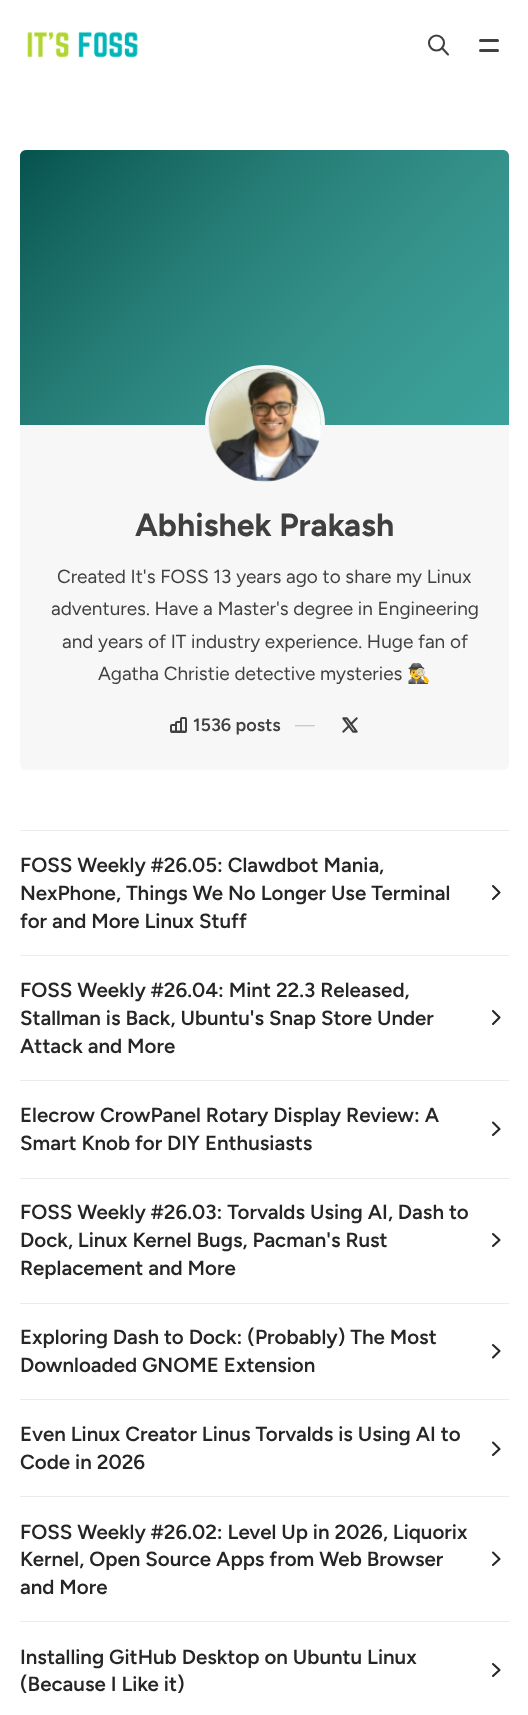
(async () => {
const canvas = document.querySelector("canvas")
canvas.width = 528
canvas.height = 1715
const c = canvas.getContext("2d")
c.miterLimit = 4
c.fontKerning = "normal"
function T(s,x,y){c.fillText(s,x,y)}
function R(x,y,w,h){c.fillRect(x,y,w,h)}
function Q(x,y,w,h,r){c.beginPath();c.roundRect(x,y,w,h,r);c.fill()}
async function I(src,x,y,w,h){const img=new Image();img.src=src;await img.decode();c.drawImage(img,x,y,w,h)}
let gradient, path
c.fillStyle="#fff"
R(0,0,528,1715)
await I("1.png",27,31,111,27)
c.beginPath()
c.arc(436.5,43,7.5,0,7)
c.strokeStyle="#404040"
c.lineWidth=2.1
c.stroke()
path = new Path2D("M448 54.5l-6-6.5")
c.lineCap="round"
c.lineJoin="round"
c.stroke(path)
c.fillStyle="#404040"
Q(479,39,20,3,1.5)
Q(479,49,20,3,1.5)
c.fillStyle="#f7f7f7"
Q(20,150,489,620,6)
c.fillStyle="#0a8a81"
c.beginPath()
c.roundRect(20,150,489,275,[6,6,0,0])
c.fill()
gradient = c.createLinearGradient(73,97,455,478)
gradient.addColorStop(0,"#00000066")
gradient.addColorStop(1,"#ffffff33")
c.fillStyle = gradient
c.beginPath()
c.roundRect(20,150,489,275,[6,6,0,0])
c.fill()
c.beginPath()
c.arc(265,425,58,0,7)
c.strokeStyle="#f7f7f7"
c.lineWidth=4
c.stroke()
await I("2.png",208,368,113,114)
c.font="bold 32px Figtree"
c.fillStyle="#404040"
T("Abhishek Prakash",135,536)
c.font="19px Figtree"
T("Created It's FOSS 13 years ago to share my Linux",57,583)
T("adventures. Have a Master's degree in Engineering",51,615)
T("and years of IT industry experience. Huge fan of",62,648)
T("Agatha Christie detective mysteries",98,680)
c.font="19px Noto Color Emoji"
T("🕵️‍♂️",407,680)
c.beginPath()
c.roundRect(171,725,5,7,1)
c.strokeStyle="#404040"
c.lineWidth=2
c.lineJoin="miter"
c.stroke()
c.beginPath()
c.roundRect(176,722,5,10,1)
c.stroke()
c.beginPath()
c.roundRect(181,718,5,14,1)
c.stroke()
path = new Path2D("M172 731.5h12")
c.lineWidth=2.1
c.lineJoin="round"
c.stroke(path)
c.font="600 18px Figtree"
T("1536 posts",193,731)
c.font="18px Figtree"
c.fillStyle="#c9c9c9"
T("—",295,731)
await I("3.png",342,717,16,16)
c.fillStyle="#ebebeb"
R(20,830,489,1)
R(20,955,489,1)
c.font="600 20.5px Figtree"
c.fillStyle="#262626"
T("FOSS Weekly #26.05: Clawdbot Mania,",20,872)
T("NexPhone, Things We No Longer Use Terminal",20,900)
T("for and More Linux Stuff",20,928)
path = new Path2D("M493 886l6.5 6.5l-6.5 6.5")
c.strokeStyle="#262626"
c.stroke(path)
c.fillStyle="#ebebeb"
R(20,1080,489,1)
c.fillStyle="#262626"
T("FOSS Weekly #26.04: Mint 22.3 Released,",20,997)
T("Stallman is Back, Ubuntu's Snap Store Under",20,1025)
T("Attack and More",20,1053)
path = new Path2D("M493 1011l6.5 6.5l-6.5 6.5")
c.stroke(path)
c.fillStyle="#ebebeb"
R(20,1178,489,1)
c.fillStyle="#262626"
T("Elecrow CrowPanel Rotary Display Review: A",20,1122)
T("Smart Knob for DIY Enthusiasts",20,1150)
path = new Path2D("M493 1122.5l6.5 6.5l-6.5 6")
c.stroke(path)
c.fillStyle="#ebebeb"
R(20,1303,489,1)
c.fillStyle="#262626"
T("FOSS Weekly #26.03: Torvalds Using AI, Dash to",20,1219)
T("Dock, Linux Kernel Bugs, Pacman's Rust",20,1247)
T("Replacement and More",20,1275)
path = new Path2D("M493 1234l6.5 6l-6.5 6")
c.stroke(path)
c.fillStyle="#ebebeb"
R(20,1399,489,1)
c.fillStyle="#262626"
T("Exploring Dash to Dock: (Probably) The Most",20,1344)
T("Downloaded GNOME Extension",20,1372)
path = new Path2D("M493 1345l6.5 6l-6.5 6.5")
c.stroke(path)
c.fillStyle="#ebebeb"
R(20,1496,489,1)
c.fillStyle="#262626"
T("Even Linux Creator Linus Torvalds is Using AI to",20,1441)
T("Code in 2026",20,1469)
path = new Path2D("M493 1442.5l6.5 6.5l-6.5 6")
c.stroke(path)
c.fillStyle="#ebebeb"
R(20,1621,489,1)
c.fillStyle="#262626"
T("FOSS Weekly #26.02: Level Up in 2026, Liquorix",20,1539)
T("Kernel, Open Source Apps from Web Browser",20,1566)
T("and More",20,1594)
path = new Path2D("M493 1552.5l6.5 6.5l-6.5 6")
c.stroke(path)
T("Installing GitHub Desktop on Ubuntu Linux",20,1664)
T("(Because I Like it)",20,1691)
path = new Path2D("M493 1664l6.5 6l-6.5 6")
c.stroke(path)
})()
